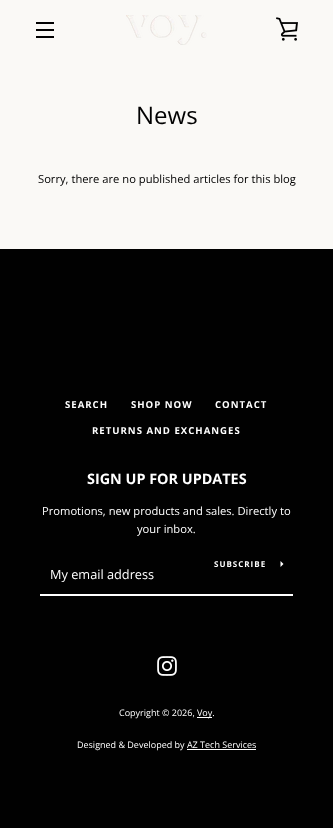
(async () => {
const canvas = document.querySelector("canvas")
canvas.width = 333
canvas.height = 828
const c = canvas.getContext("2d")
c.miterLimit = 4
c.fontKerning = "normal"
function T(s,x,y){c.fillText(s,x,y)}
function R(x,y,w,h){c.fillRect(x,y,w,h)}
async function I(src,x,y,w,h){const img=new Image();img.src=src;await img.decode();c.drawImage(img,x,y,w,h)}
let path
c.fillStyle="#010101"
R(0,0,333,828)
c.fillStyle="#faf9f6"
R(0,0,333,249)
c.fillStyle="#010101"
R(36,22,18,2)
R(36,29,18,2)
R(36,36,18,2)
await I("1.png",126,15,81,30)
await I("2.png",276,17,22,24)
c.font="24px Open Sans"
T("News",136,124)
c.font="11.2px Open Sans"
T("Sorry, there are no published articles for this blog",38,183)
c.letterSpacing="1px"
c.font="bold 9.6px Open Sans"
c.fillStyle="#fff"
T("SEARCH",65,408)
T("SHOP NOW",131,408)
T("CONTACT",215,408)
T("RETURNS AND EXCHANGES",92,434)
c.letterSpacing="0px"
c.font="bold 14.4px Open Sans"
T("SIGN UP FOR UPDATES",87,484)
c.font="11.2px Open Sans"
T("Promotions, new products and sales. Directly to",42,515)
T("your inbox.",137,533)
R(40,594,253,2)
c.letterSpacing="1px"
c.font="bold 8px Open Sans"
T("SUBSCRIBE",214,567)
path = new Path2D("M283.5 564l-3 3v-6z")
c.fill(path)
c.letterSpacing="0px"
c.font="12.75px Open Sans"
T("My email address",50,579)
await I("3.png",157,656,20,20)
c.font="9px Open Sans"
T("Copyright © 2026,",119,716)
R(197,717,15,1)
T("Voy.",197,716)
T("Designed & Developed by AZ Tech Services",77,748)
R(187,749,69,1)
})()
